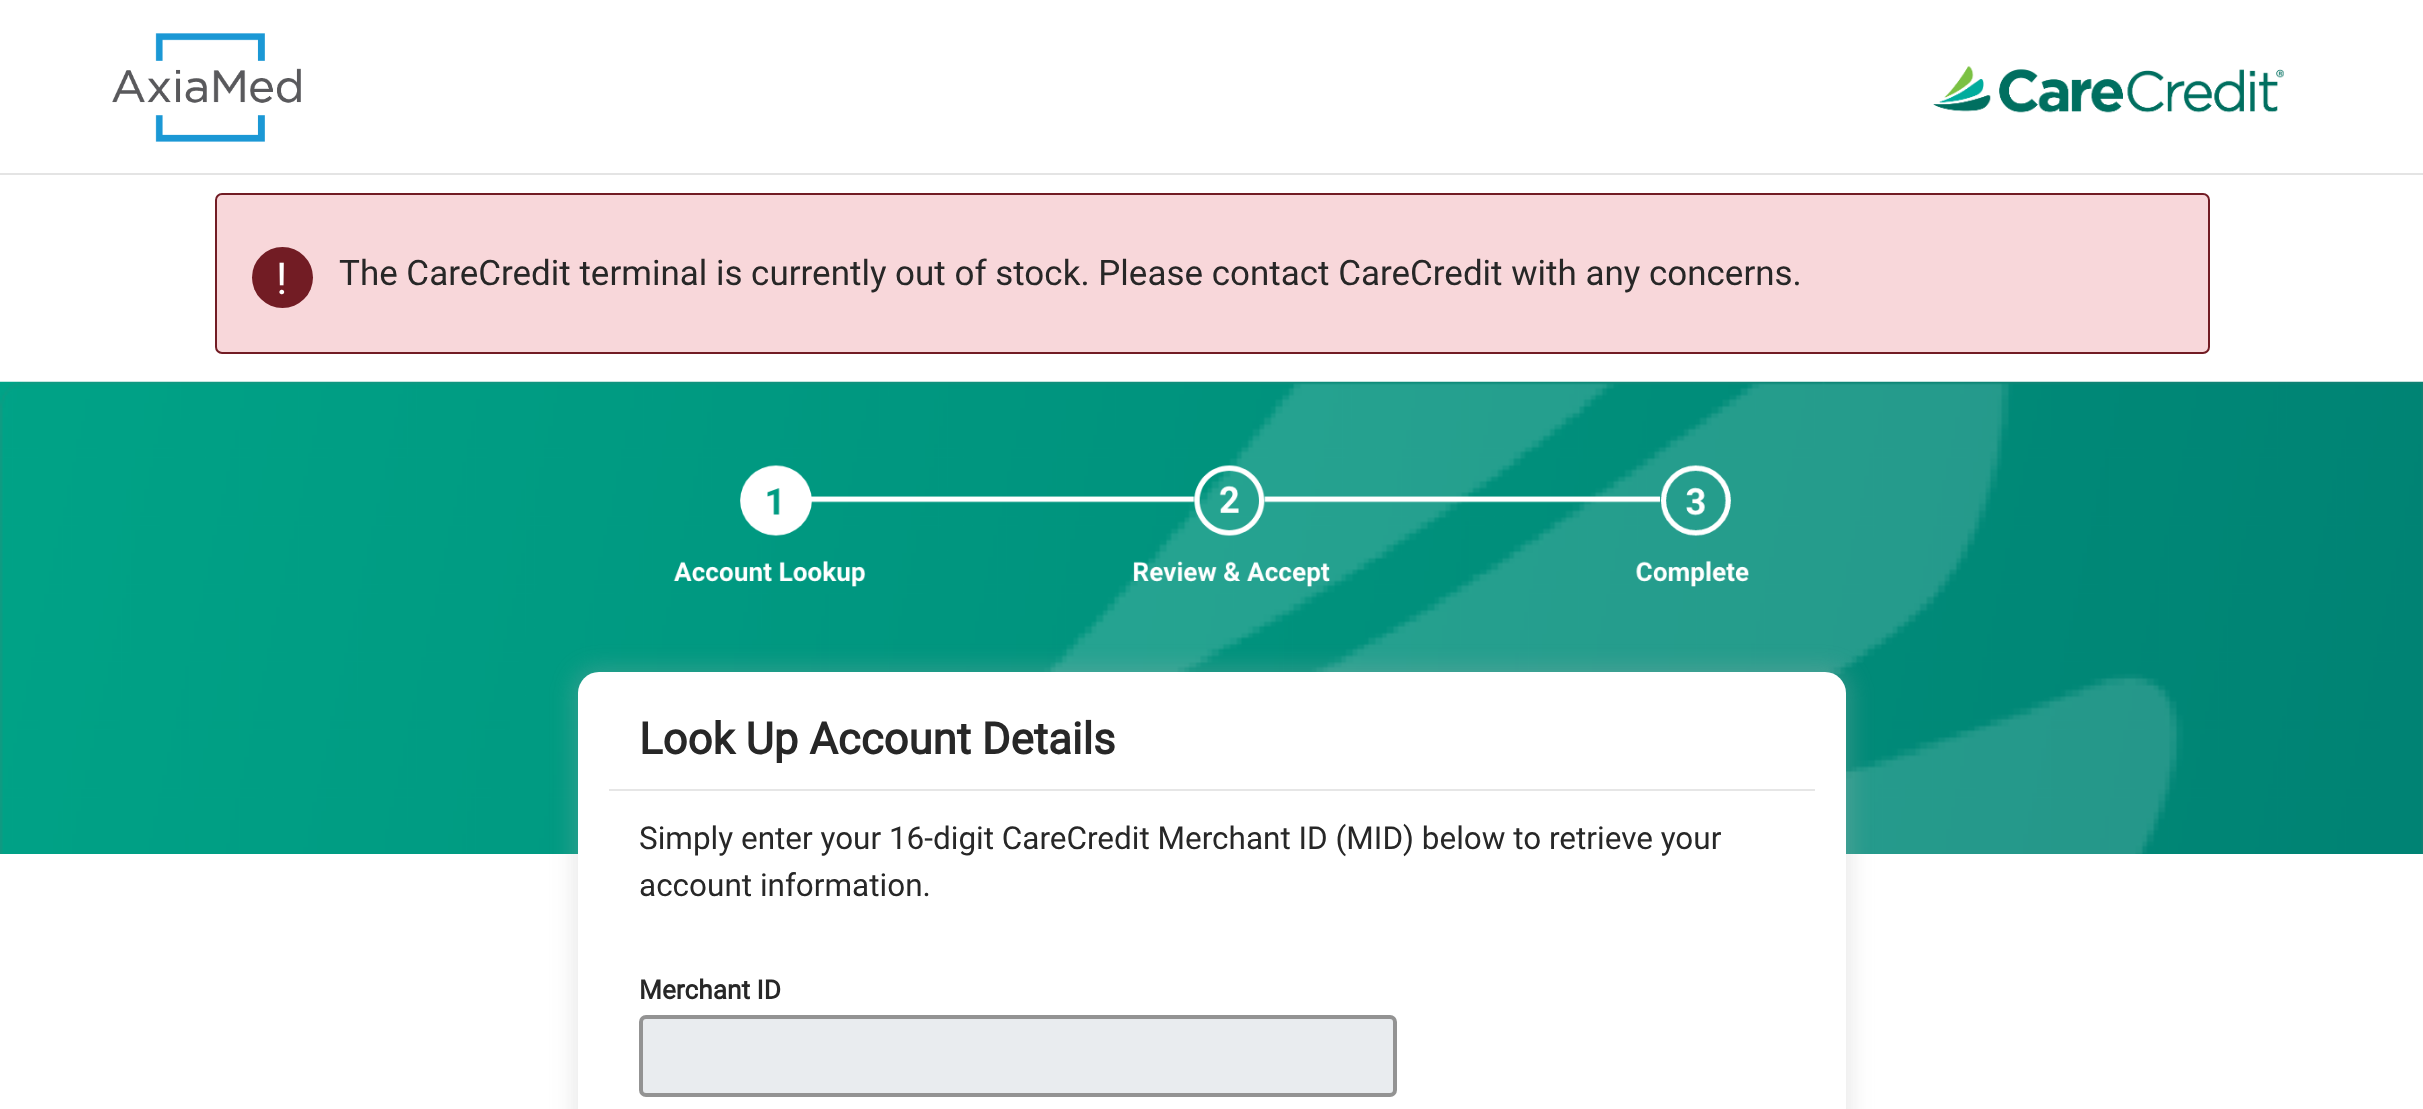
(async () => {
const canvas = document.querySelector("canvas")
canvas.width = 2423
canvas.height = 1109
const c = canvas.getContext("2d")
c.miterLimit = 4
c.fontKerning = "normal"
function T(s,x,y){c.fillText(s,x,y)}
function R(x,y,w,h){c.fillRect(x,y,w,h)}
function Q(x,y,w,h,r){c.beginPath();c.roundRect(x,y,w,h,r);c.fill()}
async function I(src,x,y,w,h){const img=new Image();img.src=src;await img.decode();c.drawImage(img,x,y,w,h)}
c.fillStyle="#fff"
R(0,0,2423,1109)
c.fillStyle="#e4e4e4"
R(0,173,2423,2)
await I("1.png",112,33,189,109)
await I("2.png",1933,66,351,47)
c.fillStyle="#f8d7da"
c.beginPath()
c.roundRect(216,194,1993,159,6)
c.fill()
c.strokeStyle="#721c24"
c.lineWidth=2
c.stroke()
c.fillStyle="#721c24"
c.beginPath()
c.arc(282.5,277.5,30.5,0,7)
c.fill()
c.font="44px Roboto"
c.fillStyle="#fff"
T("!",276,294)
c.font="35px Roboto"
c.fillStyle="#272727"
T("The CareCredit terminal is currently out of stock. Please contact CareCredit with any concerns.",339,285)
await I("3.png",0,381,2423,473)
await I("4.png",673,465,1076,122)
c.fillStyle="#afafaf40"
c.filter="blur(10.5px)"
c.beginPath()
c.roundRect(572,667,1280,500,26)
c.fill()
c.filter="none"
c.fillStyle="#fff"
Q(578,672,1268,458,21)
c.font="bold 43.75px Roboto"
c.fillStyle="#272727"
T("Look Up Account Details",639,754)
c.fillStyle="#e6e6e6"
R(609,789,1206,2)
c.font="31.5px Roboto"
c.fillStyle="#272727"
T("Simply enter your 16-digit CareCredit Merchant ID (MID) below to retrieve your",639,849)
T("account information.",639,896)
c.font="bold 26.25px Roboto"
T("Merchant ID",639,999)
c.fillStyle="#e9ecef"
c.beginPath()
c.roundRect(641,1017,754,78,5)
c.fill()
c.strokeStyle="#939393"
c.lineWidth=4
c.stroke()
})()
